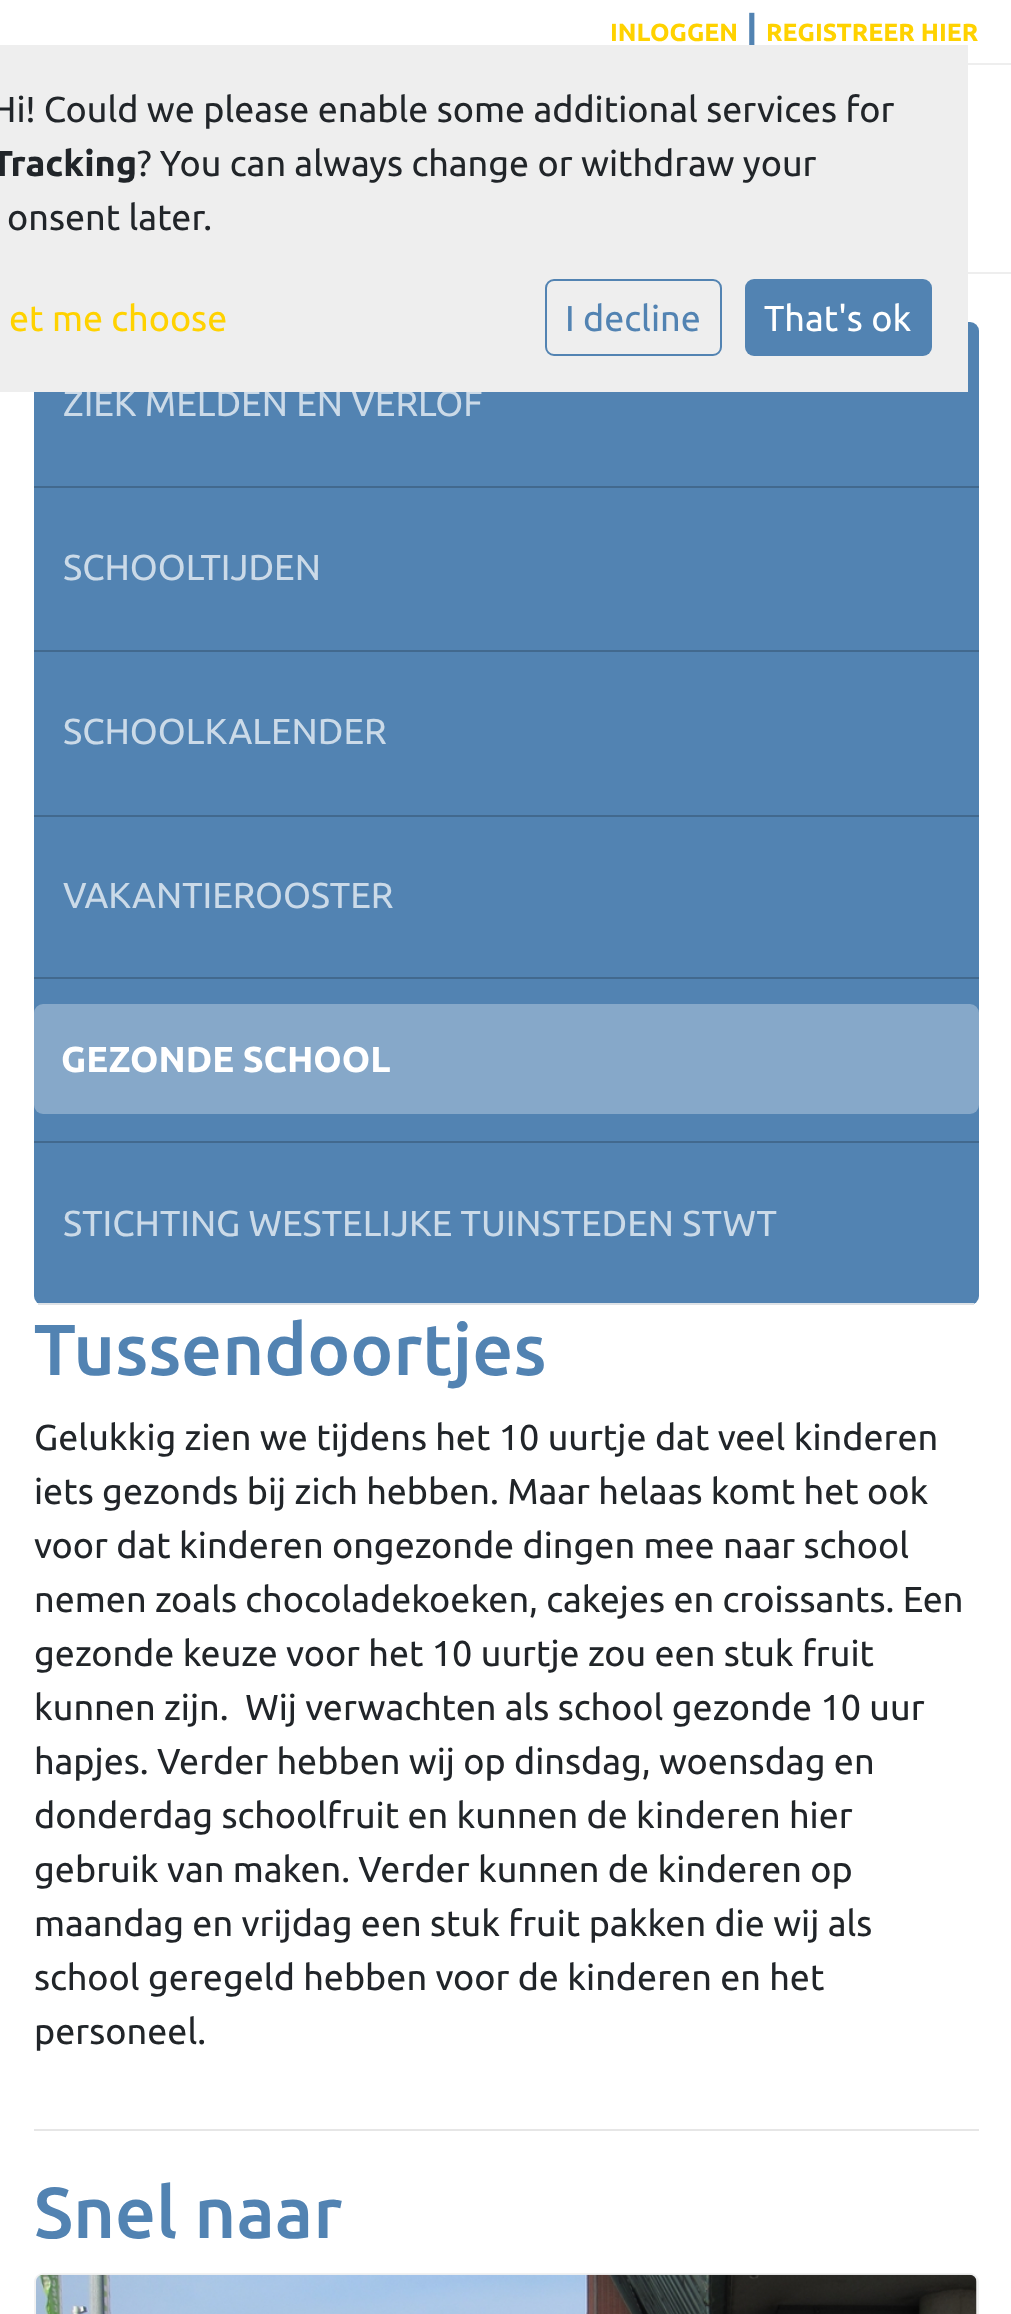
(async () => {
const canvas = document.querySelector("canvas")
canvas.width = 1011
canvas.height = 2314
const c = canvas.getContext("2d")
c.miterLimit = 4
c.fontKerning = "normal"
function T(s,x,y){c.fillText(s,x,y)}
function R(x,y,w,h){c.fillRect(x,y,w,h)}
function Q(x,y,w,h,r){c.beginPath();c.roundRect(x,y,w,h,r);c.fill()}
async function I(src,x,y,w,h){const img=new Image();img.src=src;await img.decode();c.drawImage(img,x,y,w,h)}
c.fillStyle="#fff"
R(0,0,1011,2314)
c.fillStyle="#eee"
R(968,63,43,2)
c.font="bold 24.75px Ubuntu"
c.fillStyle="#ffd200"
T("INLOGGEN",610,41)
c.font="bold 36px Ubuntu"
c.fillStyle="#5283b2"
T("|",746,41)
c.font="bold 24.75px Ubuntu"
c.fillStyle="#ffd200"
T("REGISTREER HIER",766,41)
c.fillStyle="#5283b2"
Q(34,322,945,983,9)
c.font="36px Ubuntu"
c.fillStyle="#cbdae8"
T("ZIEK MELDEN EN VERLOF",63,416)
c.fillStyle="#eee"
R(0,45,968,347)
c.fillStyle="#212529"
T("Hi! Could we please enable some additional services for",-9,122)
c.font="bold 36px Ubuntu"
T("Tracking",-9,176)
c.font="36px Ubuntu"
T("? You can always change or withdraw your",137,176)
T("onsent later.",7,230)
c.fillStyle="#ffd200"
T("et me choose",9,331)
c.beginPath()
c.roundRect(546,280,175,75,8)
c.strokeStyle="#5283b2"
c.lineWidth=2
c.stroke()
c.fillStyle="#5283b2"
T("I decline",565,331)
Q(745,279,187,77,9)
c.fillStyle="#fff"
T("That's ok",764,331)
c.fillStyle="#eee"
R(968,272,43,2)
c.fillStyle="#dee2e6"
R(38,1303,936,2)
c.fillStyle="#42698e"
R(34,486,945,2)
R(34,650,945,2)
c.fillStyle="#cbdae8"
T("SCHOOLTIJDEN",63,580)
c.fillStyle="#42698e"
R(34,815,945,2)
c.fillStyle="#cbdae8"
T("SCHOOLKALENDER",63,744)
c.fillStyle="#42698e"
R(34,977,945,2)
c.fillStyle="#cbdae8"
T("VAKANTIEROOSTER",63,908)
c.fillStyle="#42698e"
R(34,1141,945,2)
c.fillStyle="#86a8c9"
Q(34,1004,945,110,9)
c.font="bold 36px Ubuntu"
c.fillStyle="#fff"
T("GEZONDE SCHOOL",61,1072)
c.font="36px Ubuntu"
c.fillStyle="#cbdae8"
T("STICHTING WESTELIJKE TUINSTEDEN STWT",63,1236)
c.font="500 72px Ubuntu"
c.fillStyle="#5283b2"
T("Tussendoortjes",34,1375)
c.font="36px Ubuntu"
c.fillStyle="#212529"
T("Gelukkig zien we tijdens het 10 uurtje dat veel kinderen",34,1450)
T("iets gezonds bij zich hebben. Maar helaas komt het ook",34,1504)
T("voor dat kinderen ongezonde dingen mee naar school",34,1558)
T("nemen zoals chocoladekoeken, cakejes en croissants. Een",34,1612)
T("gezonde keuze voor het 10 uurtje zou een stuk fruit",34,1666)
T("kunnen zijn.  Wij verwachten als school gezonde 10 uur",34,1720)
T("hapjes. Verder hebben wij op dinsdag, woensdag en",34,1774)
T("donderdag schoolfruit en kunnen de kinderen hier",34,1828)
T("gebruik van maken. Verder kunnen de kinderen op",34,1882)
T("maandag en vrijdag een stuk fruit pakken die wij als",34,1936)
T("school geregeld hebben voor de kinderen en het",34,1990)
T("personeel.",34,2044)
c.fillStyle="#e6e6e6"
R(34,2129,945,2)
c.font="500 72px Ubuntu"
c.fillStyle="#5283b2"
T("Snel naar",34,2238)
c.fillStyle="#f2f2f2"
c.beginPath()
c.roundRect(35,2274,943,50,8)
c.fill()
c.strokeStyle="#f2f2f2"
c.stroke()
await I("1.png",36,2274,941,40)
})()
